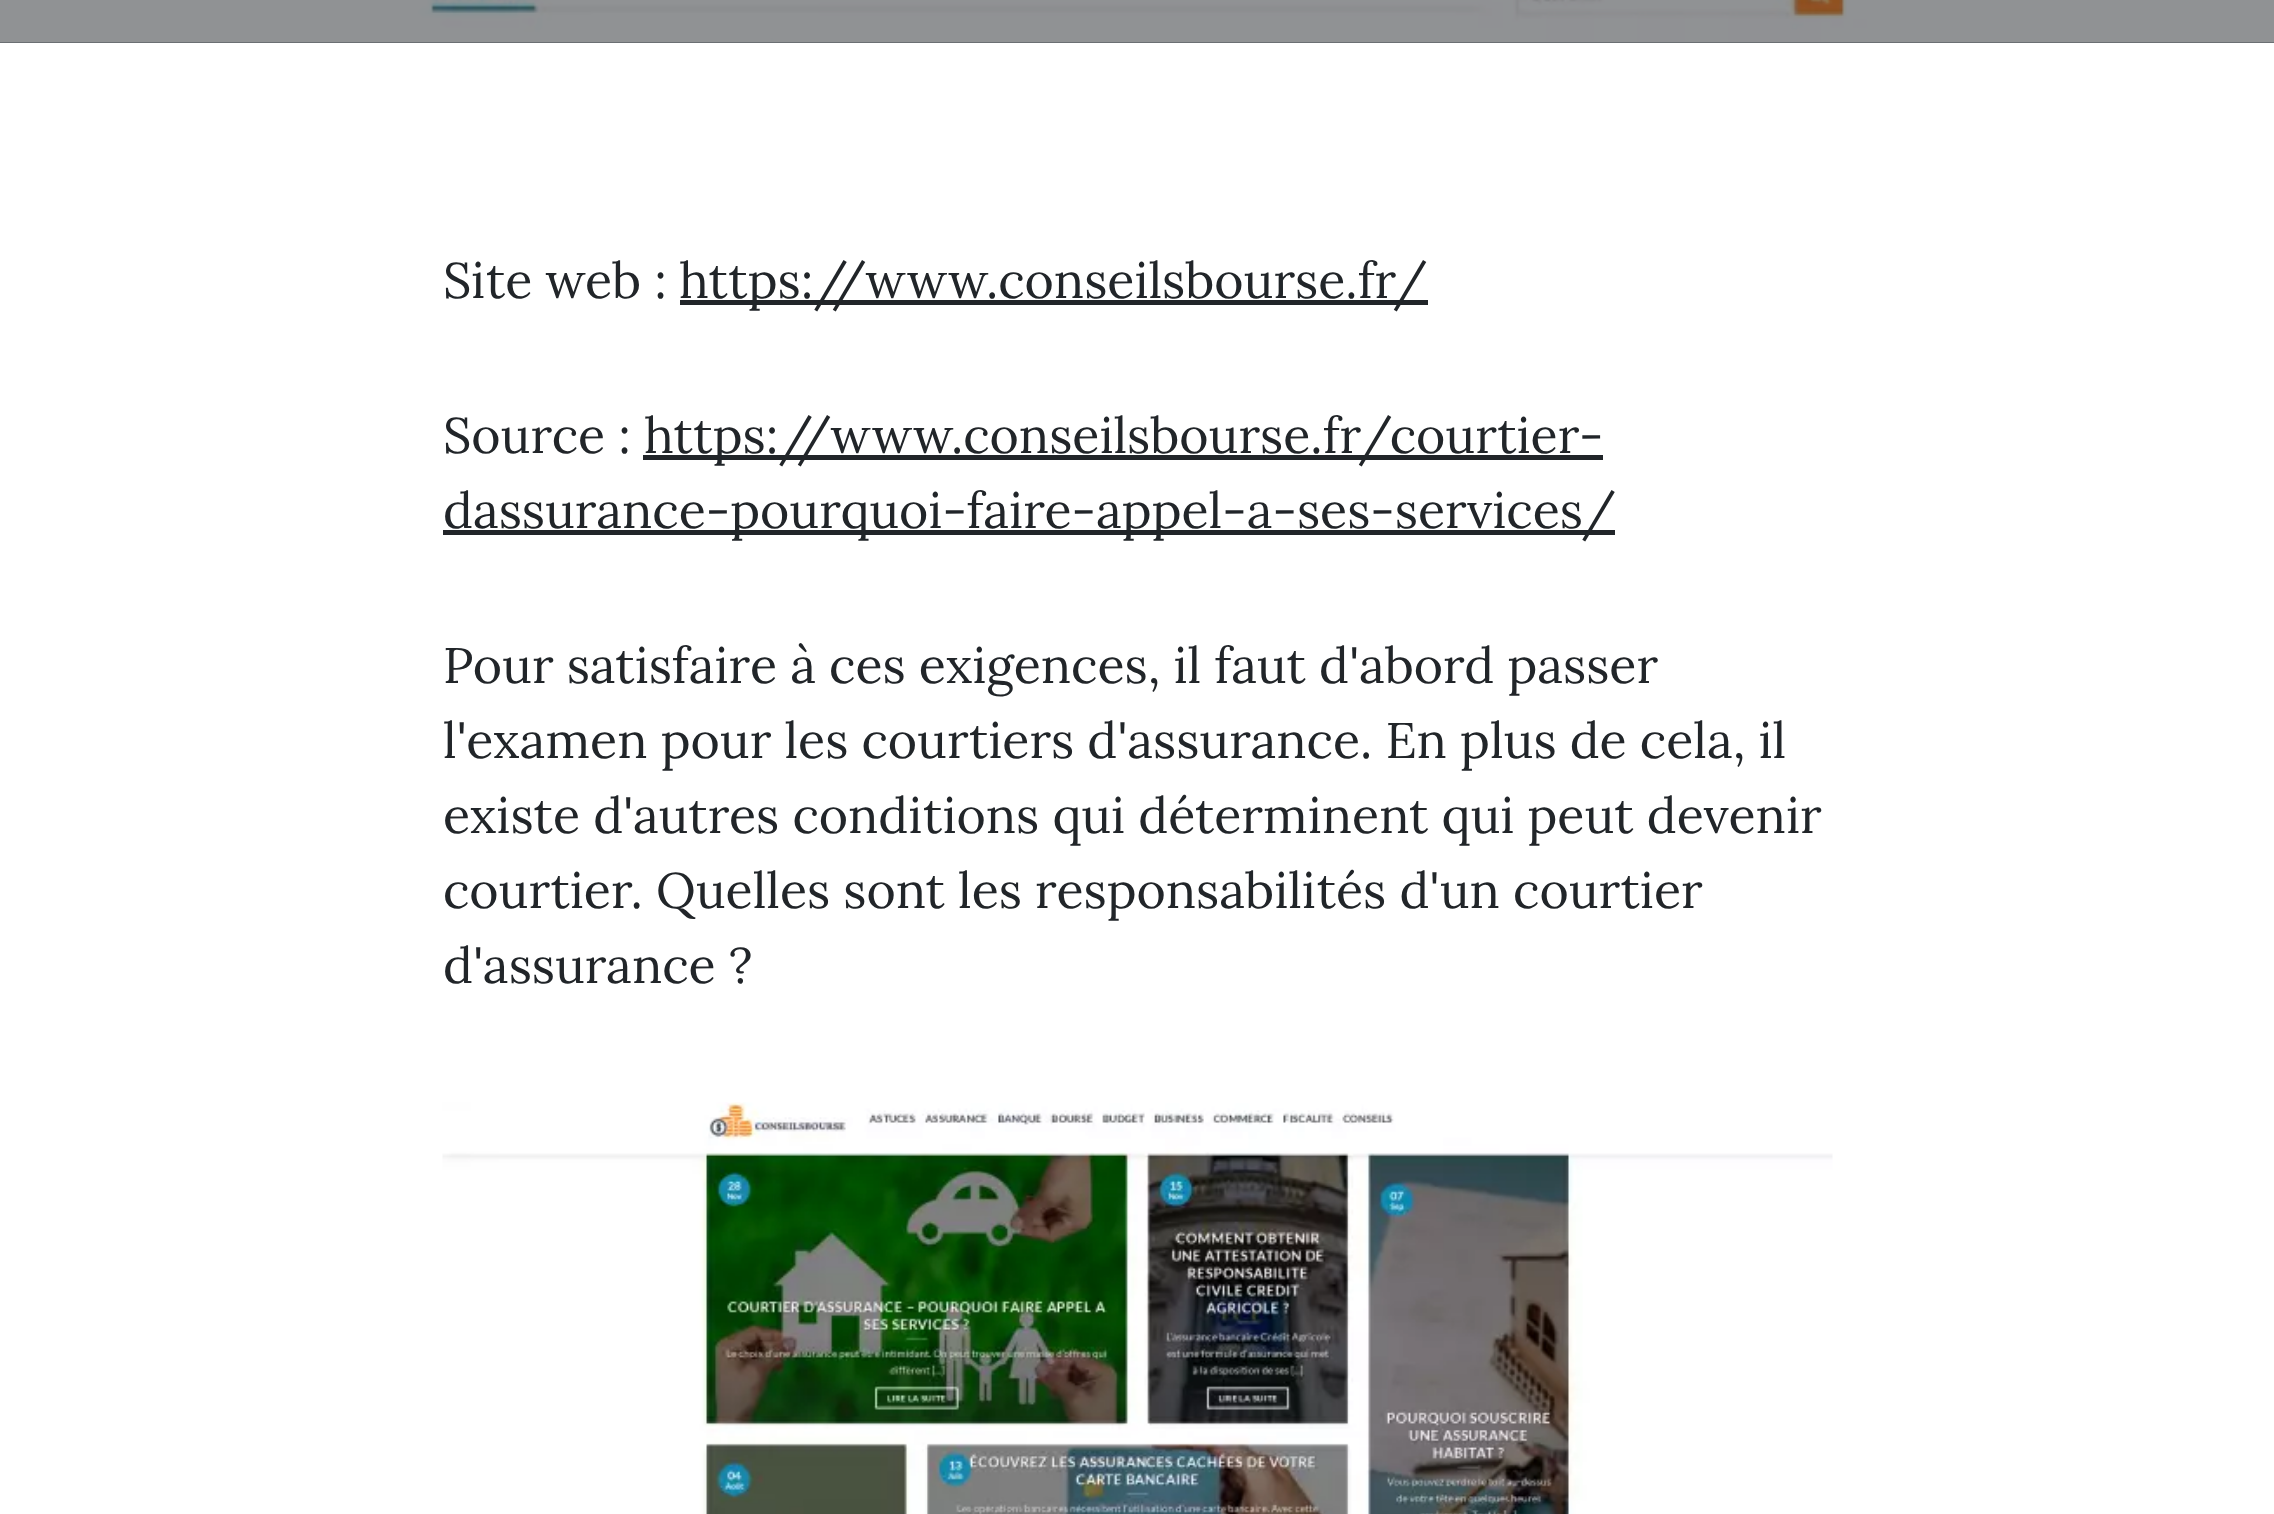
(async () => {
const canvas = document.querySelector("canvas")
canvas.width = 2274
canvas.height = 1514
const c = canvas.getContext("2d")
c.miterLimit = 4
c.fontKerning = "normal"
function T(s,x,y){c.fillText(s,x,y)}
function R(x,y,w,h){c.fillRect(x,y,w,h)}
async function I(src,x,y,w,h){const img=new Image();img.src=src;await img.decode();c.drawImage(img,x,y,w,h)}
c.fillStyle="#fff"
R(0,0,2274,1514)
c.fillStyle="#474d53"
R(0,42,2274,1)
await I("1.png",0,0,2274,43)
c.font="50px Lora"
c.fillStyle="#212529"
T("Site web :",443,298)
R(680,300,748,5)
T("https://www.conseilsbourse.fr/",679,298)
T("Source :",443,453)
R(643,455,960,5)
T("https://www.conseilsbourse.fr/courtier-",644,453)
R(443,530,1172,5)
T("dassurance-pourquoi-faire-appel-a-ses-services/",443,528)
T("Pour satisfaire à ces exigences, il faut d'abord passer",443,683)
T("l'examen pour les courtiers d'assurance. En plus de cela, il",443,758)
T("existe d'autres conditions qui déterminent qui peut devenir",443,833)
T("courtier. Quelles sont les responsabilités d'un courtier",443,908)
T("d'assurance ?",443,983)
await I("2.png",442,1102,1391,412)
})()
